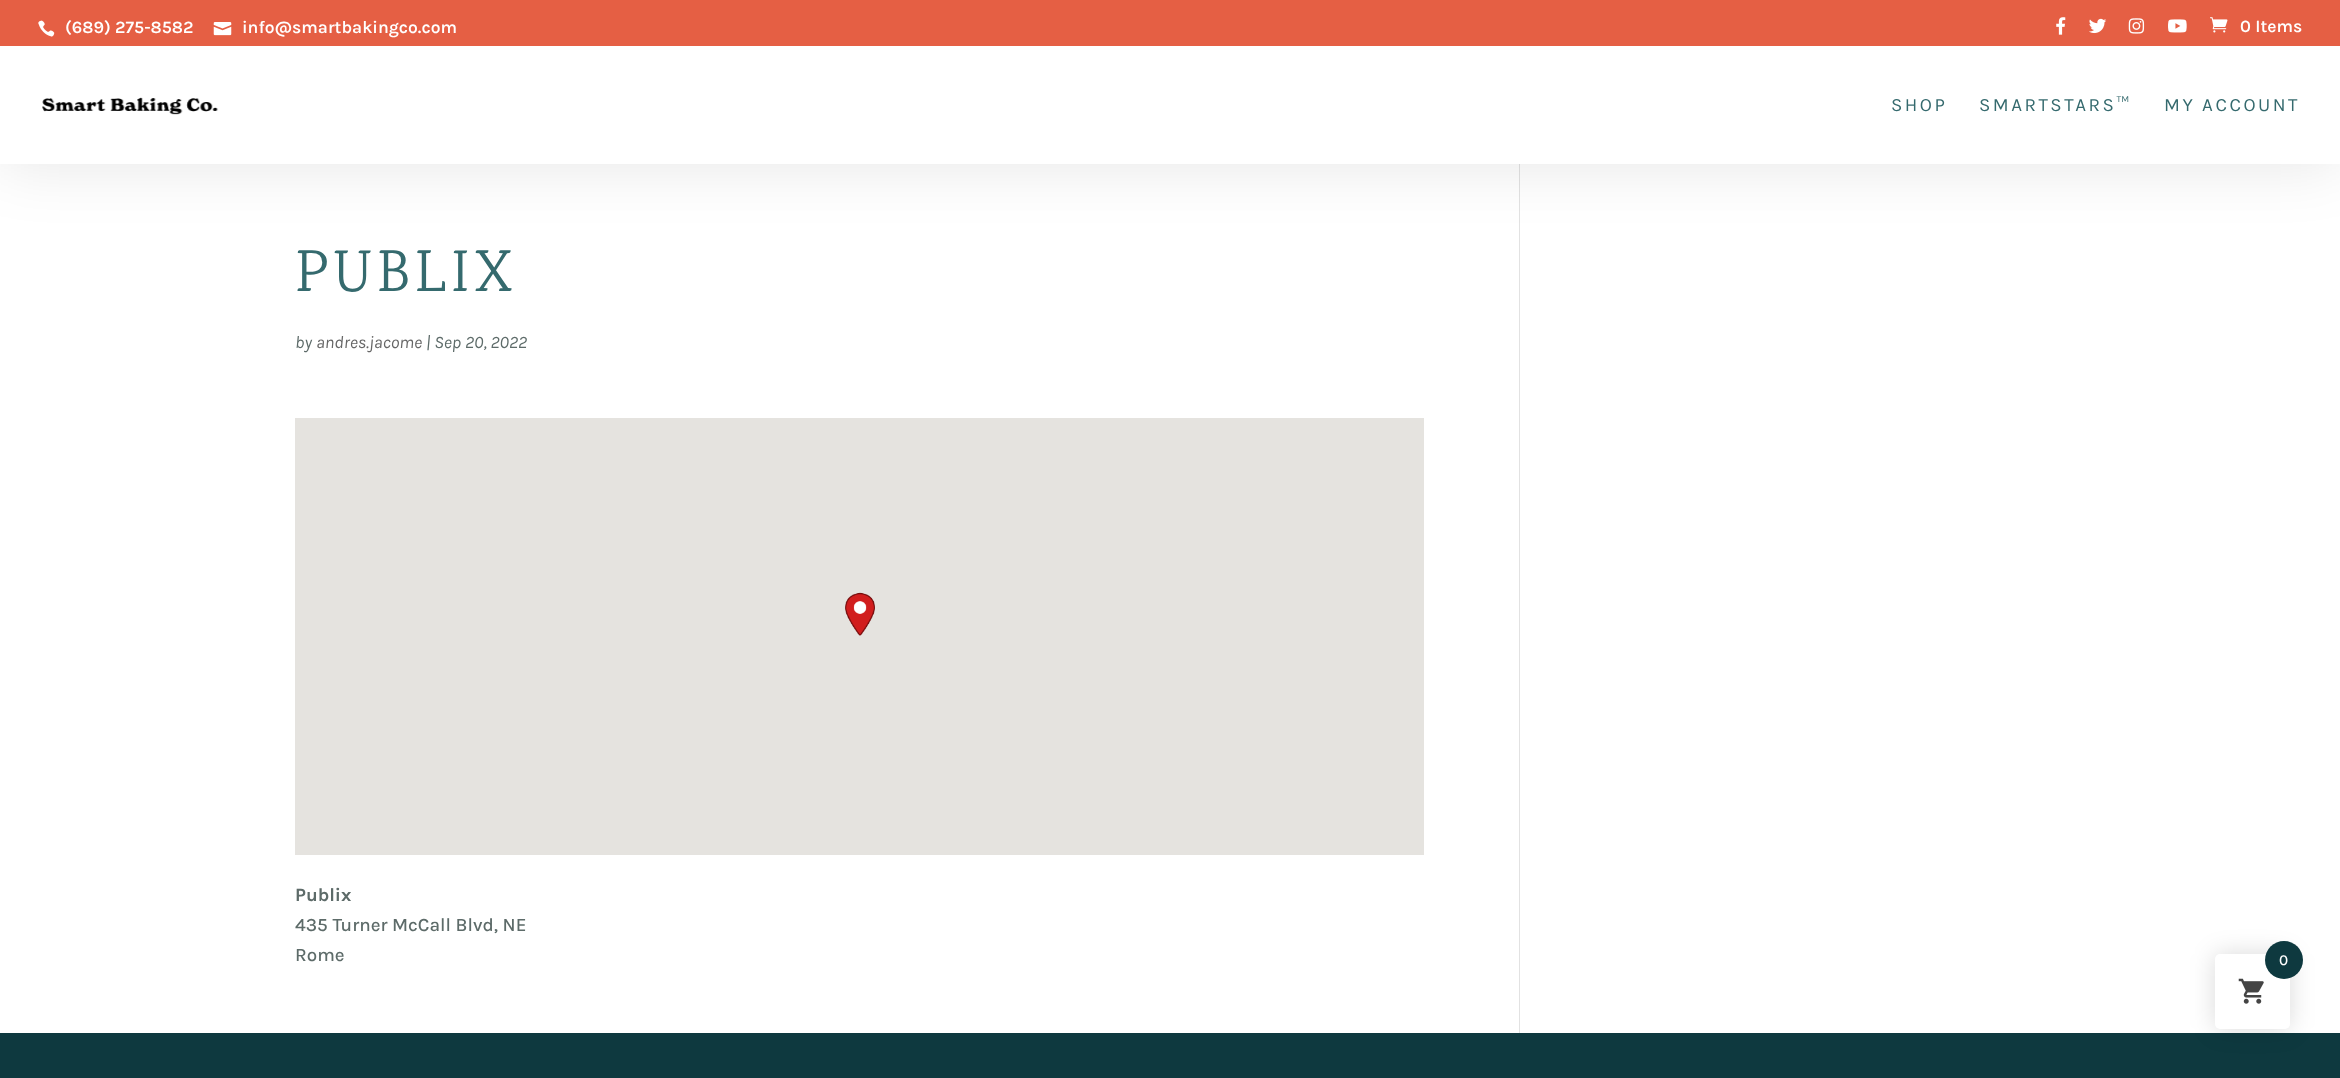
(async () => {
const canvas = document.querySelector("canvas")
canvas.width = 2340
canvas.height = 1078
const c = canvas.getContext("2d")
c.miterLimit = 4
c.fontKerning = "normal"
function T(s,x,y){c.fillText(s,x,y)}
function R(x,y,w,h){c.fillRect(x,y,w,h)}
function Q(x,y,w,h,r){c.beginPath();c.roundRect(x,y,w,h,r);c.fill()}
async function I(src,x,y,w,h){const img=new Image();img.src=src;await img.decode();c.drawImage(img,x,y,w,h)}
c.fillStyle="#fff"
R(0,0,2340,1078)
c.fillStyle="#e2e2e2"
R(1519,164,1,869)
c.fillStyle="#0000001a"
c.filter="blur(31px)"
c.beginPath()
c.rect(0,46,2340,118)
c.fill()
c.filter="none"
c.fillStyle="#e55f44"
R(0,0,2340,46)
await I("1.png",38,20,17,17)
c.font="600 17.5px Karla"
c.fillStyle="#fff"
T("(689) 275-8582",65,33)
await I("2.png",213,22,19,14)
T("info@smartbakingco.com",242,33)
await I("3.png",2056,17,10,18)
await I("4.png",2089,18,18,16)
await I("5.png",2128,18,17,16)
await I("6.png",2168,19,19,14)
await I("7.png",2210,17,18,16)
T("0 Items",2240,32)
R(0,46,2340,118)
await I("8.png",42,97,177,18)
c.letterSpacing="2.5px"
c.font="18.75px Karla"
c.fillStyle="#356a6e"
T("SHOP",1891,111)
T("SMARTSTARS™",1979,111)
T("MY ACCOUNT",2164,111)
c.letterSpacing="5px"
c.font="60px Karma"
T("PUBLIX",295,291)
c.letterSpacing="0px"
c.font="italic 17.5px Karla"
c.fillStyle="#5d6b69"
T("by",295,348)
c.fillStyle="#666"
T("andres.jacome",316,348)
c.fillStyle="#5d6b69"
T("| Sep 20, 2022",426,348)
c.fillStyle="#e5e3df"
R(295,418,1129,437)
await I("9.png",845,592,30,44)
c.font="bold 18.75px Karla"
c.fillStyle="#5d6b69"
T("Publix",295,901)
c.font="500 18.75px Karla"
T("435 Turner McCall Blvd, NE",295,931)
T("Rome",295,961)
c.fillStyle="#0e393f"
R(0,1033,2340,45)
c.fillStyle="#00000026"
c.filter="blur(12.5px)"
c.beginPath()
c.roundRect(2215,954,75,75,5)
c.fill()
c.filter="none"
c.fillStyle="#fff"
Q(2215,954,75,75,5)
c.fillStyle="#0e393f"
c.beginPath()
c.arc(2284,960,19,0,7)
c.fill()
c.font="500 15px Karla"
c.fillStyle="#fff"
T("0",2279,965)
await I("10.png",2238,978,26,26)
})()
